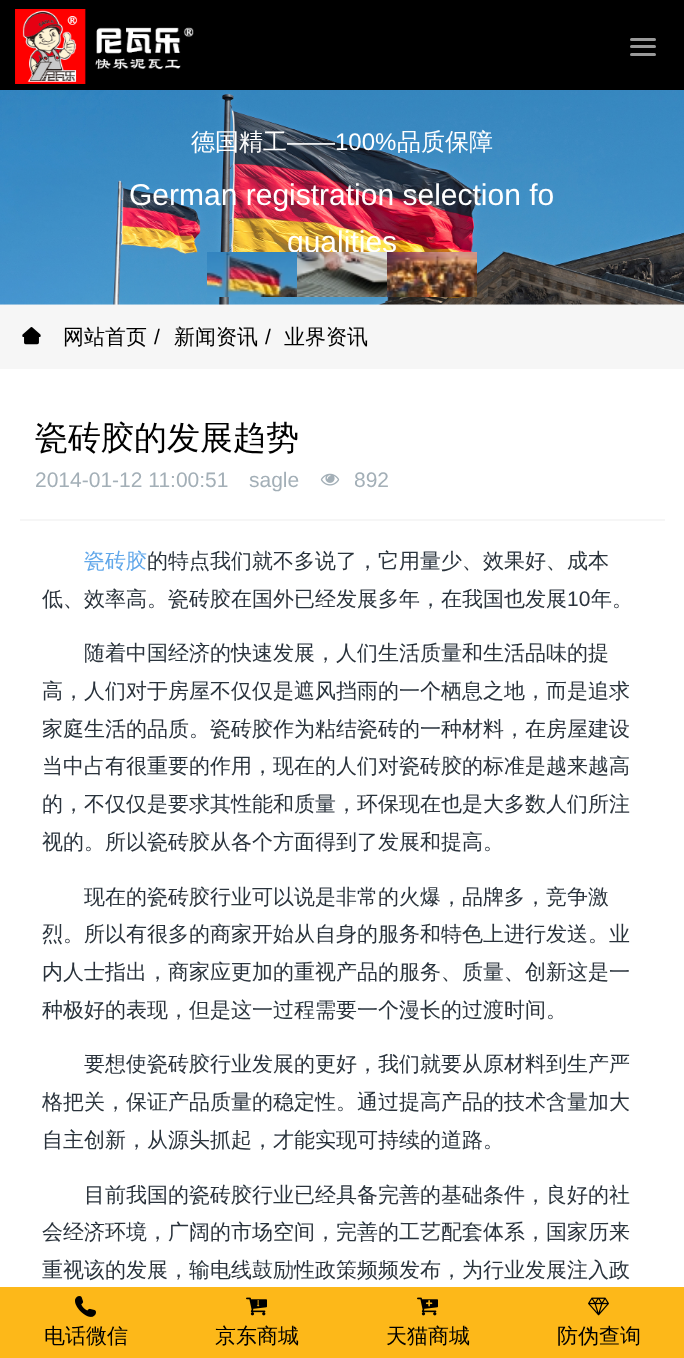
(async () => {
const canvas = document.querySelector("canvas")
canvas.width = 684
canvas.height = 1358
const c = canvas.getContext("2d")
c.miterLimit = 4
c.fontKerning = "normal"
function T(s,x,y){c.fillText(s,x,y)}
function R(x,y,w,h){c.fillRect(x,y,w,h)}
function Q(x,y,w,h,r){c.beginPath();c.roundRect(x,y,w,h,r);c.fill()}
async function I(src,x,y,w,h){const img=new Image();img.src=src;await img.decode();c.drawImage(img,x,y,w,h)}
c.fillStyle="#fff"
R(0,0,684,1358)
c.fillStyle="#000"
R(0,0,684,90)
await I("1.png",15,9,179,75)
c.fillStyle="#999"
Q(630,38,26,3,1.5)
Q(630,45,26,3,1.5)
Q(630,53,26,3,1.5)
c.fillStyle="#f2f2f2"
R(0,304,684,1)
await I("2.png",0,90,684,215)
c.font="500 24px WenQuanYi Zen Hei"
c.fillStyle="#fff"
T("德国精工",191,150)
c.font="24px Liberation Sans"
T("——100%",287,150)
c.font="500 24px WenQuanYi Zen Hei"
T("品质保障",397,150)
c.font="30px Liberation Sans"
T("German registration selection fo",129,205)
T("qualities",287,252)
await I("3.png",207,252,90,45)
await I("4.png",297,252,90,45)
await I("5.png",387,252,90,45)
c.fillStyle="#f6f6f6"
R(0,305,684,64)
await I("6.png",22,327,19,18)
c.font="500 21px WenQuanYi Zen Hei"
c.fillStyle="#000"
T("网站首页",63,344)
c.font="21px Liberation Sans"
T("/",154,344)
c.font="500 21px WenQuanYi Zen Hei"
T("新闻资讯",174,344)
c.font="21px Liberation Sans"
T("/",265,344)
c.font="500 21px WenQuanYi Zen Hei"
T("业界资讯",284,344)
c.fillStyle="#f6f6f6"
R(20,519,645,2)
c.font="500 33px WenQuanYi Zen Hei"
c.fillStyle="#000"
T("瓷砖胶的发展趋势",35,449)
c.font="21px Liberation Sans"
c.fillStyle="#a3afb7"
T("2014-01-12 11:00:51",35,487)
T("sagle",249,487)
await I("7.png",320,473,20,13)
T("892",354,487)
c.font="500 21px WenQuanYi Zen Hei"
c.fillStyle="#62a8ea"
T("瓷砖胶",84,568)
c.fillStyle="#2a333c"
T("的特点我们就不多说了，它用量少、效果好、成本",147,568)
T("低、效率高。瓷砖胶在国外已经发展多年，在我国也发展",42,606)
c.font="21px Liberation Sans"
T("10",567,606)
c.font="500 21px WenQuanYi Zen Hei"
T("年。",591,606)
T("随着中国经济的快速发展，人们生活质量和生活品味的提",84,660)
T("高，人们对于房屋不仅仅是遮风挡雨的一个栖息之地，而是追求",42,698)
T("家庭生活的品质。瓷砖胶作为粘结瓷砖的一种材料，在房屋建设",42,736)
T("当中占有很重要的作用，现在的人们对瓷砖胶的标准是越来越高",42,773)
T("的，不仅仅是要求其性能和质量，环保现在也是大多数人们所注",42,811)
T("视的。所以瓷砖胶从各个方面得到了发展和提高。",42,849)
T("现在的瓷砖胶行业可以说是非常的火爆，品牌多，竞争激",84,904)
T("烈。所以有很多的商家开始从自身的服务和特色上进行发送。业",42,941)
T("内人士指出，商家应更加的重视产品的服务、质量、创新这是一",42,979)
T("种极好的表现，但是这一过程需要一个漫长的过渡时间。",42,1017)
T("要想使瓷砖胶行业发展的更好，我们就要从原材料到生产严",84,1071)
T("格把关，保证产品质量的稳定性。通过提高产品的技术含量加大",42,1109)
T("自主创新，从源头抓起，才能实现可持续的道路。",42,1147)
T("目前我国的瓷砖胶行业已经具备完善的基础条件，良好的社",84,1202)
T("会经济环境，广阔的市场空间，完善的工艺配套体系，国家历来",42,1239)
T("重视该的发展，输电线鼓励性政策频频发布，为行业发展注入政",42,1277)
c.fillStyle="#fdb819"
R(0,1287,684,71)
await I("8.png",75,1296,21,21)
c.fillStyle="#000"
T("电话微信",44,1343)
await I("9.png",246,1297,21,19)
T("京东商城",215,1343)
await I("10.png",417,1297,21,19)
T("天猫商城",386,1343)
await I("11.png",588,1297,21,19)
T("防伪查询",557,1343)
})()
